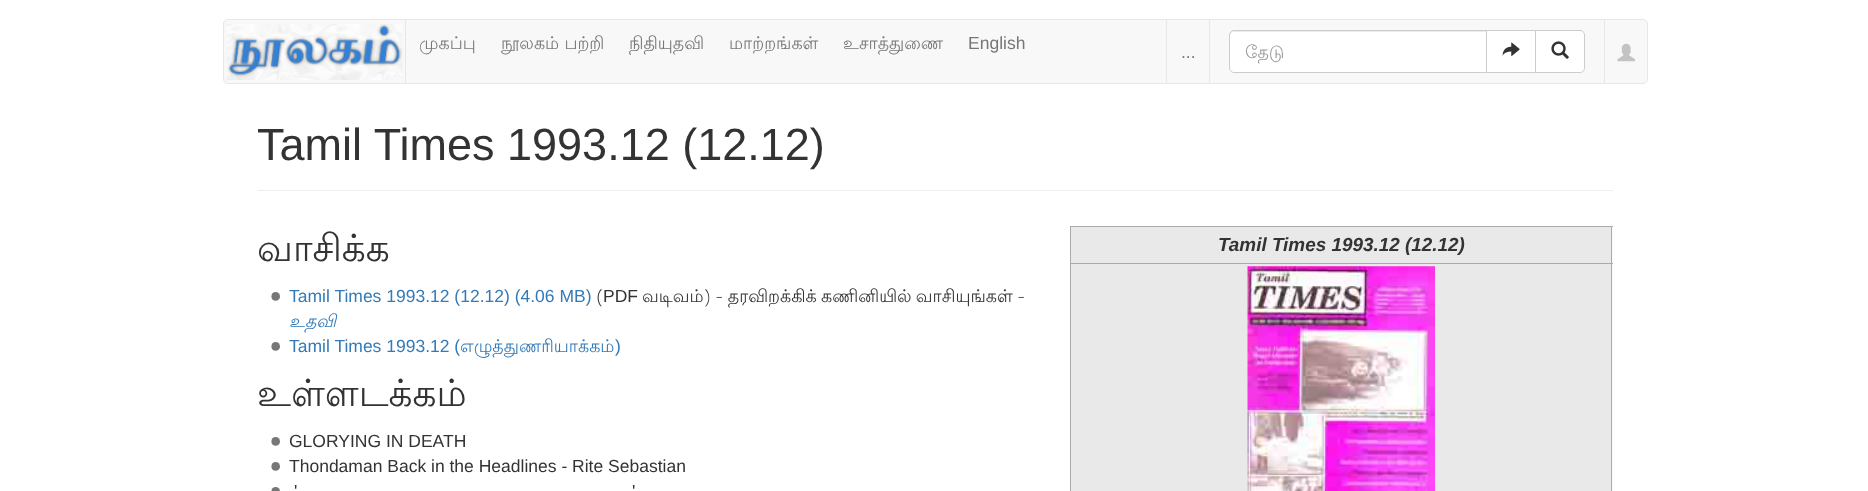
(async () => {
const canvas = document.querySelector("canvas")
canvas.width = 1868
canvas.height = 491
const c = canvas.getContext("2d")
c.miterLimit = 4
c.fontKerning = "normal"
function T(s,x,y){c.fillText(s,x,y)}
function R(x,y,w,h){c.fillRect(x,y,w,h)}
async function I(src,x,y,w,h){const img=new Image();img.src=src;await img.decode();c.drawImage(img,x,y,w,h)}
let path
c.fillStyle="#fff"
R(0,0,1868,491)
c.fillStyle="#f8f8f8"
c.beginPath()
c.roundRect(223.5,19.5,1424,64,4.5)
c.fill()
c.strokeStyle="#e7e7e7"
c.stroke()
c.fillStyle="#e7e7e7"
R(405,20,1,63)
await I("1.png",226,24,177,56)
c.font="17.5px Lohit Tamil"
c.fillStyle="#777"
T("முகப்பு",419,49)
T("நூலகம் பற்றி",501,49)
T("நிதியுதவி",629,49)
T("மாற்றங்கள்",729,49)
T("உசாத்துணை",843,49)
c.font="17.5px Liberation Sans"
T("English",968,49)
c.fillStyle="#e7e7e7"
R(1209,20,1,63)
R(1166,20,1,63)
c.fillStyle="#777"
T("...",1181,58)
c.fillStyle="#e7e7e7"
R(1604,20,1,63)
c.fillStyle="#fff"
c.beginPath()
c.roundRect(1229,30,259,43,[5,0,0,5])
c.fill()
c.fillStyle="#ececec"
path = new Path2D("M1234 32h252v-1h-252c-2 0-4 2-4 4v1c0-2 2-4 4-4z")
c.fill(path)
c.beginPath()
c.roundRect(1229.5,30.5,258,42,[4.5,0,0,4.5])
c.strokeStyle="#ccc"
c.stroke()
c.font="17.5px Lohit Tamil"
c.fillStyle="#999"
T("தேடு",1245,58)
c.fillStyle="#fff"
c.beginPath()
c.rect(1486.5,30.5,49,42)
c.fill()
c.stroke()
await I("2.png",1502,42,18,14)
c.beginPath()
c.roundRect(1535.5,30.5,49,42,[0,4.5,4.5,0])
c.fill()
c.stroke()
await I("3.png",1551,41,18,18)
await I("4.png",1617,43,18,19)
c.fillStyle="#eee"
R(258,190,1355,1)
c.font="45px Liberation Sans"
c.fillStyle="#333"
T("Tamil Times 1993.12 (12.12)",257,160)
c.font="37.5px Lohit Tamil"
T("வாசிக்க",257,261)
c.fillStyle="#f8f9fa"
R(1612,227,1,264)
c.fillStyle="#e9e9e9"
R(1071,227,540,36)
c.fillStyle="#aaa"
R(1070,226,543,1)
R(1070,263,543,1)
R(1611,263,1,228)
R(1611,226,1,38)
R(1070,263,1,228)
R(1070,226,1,38)
c.font="italic bold 18.9px Liberation Sans"
c.fillStyle="#333"
T("Tamil Times 1993.12 (12.12)",1218,251)
c.fillStyle="#e9e9e9"
R(1071,264,540,227)
await I("5.png",1247,266,188,225)
await I("6.png",271,292,9,9)
c.font="17.5px Liberation Sans"
c.fillStyle="#337ab7"
T("Tamil Times 1993.12 (12.12) (4.06 MB)",289,302)
c.font="17.5px Lohit Tamil"
c.fillStyle="#333"
T("(",596,302)
c.font="17.5px Liberation Sans"
T("PDF",603,302)
c.wordSpacing="-1px"
c.font="17.5px Lohit Tamil"
T("வடிவம்) - தரவிறக்கிக் கணினியில் வாசியுங்கள் -",642,302)
c.wordSpacing="0px"
c.font="italic 17.5px Lohit Tamil"
c.fillStyle="#337ab7"
T("உதவி",289,327)
await I("6.png",271,342,9,9)
c.font="17.5px Liberation Sans"
T("Tamil Times 1993.12 (",289,352)
c.font="17.5px Lohit Tamil"
T("எழுத்துணரியாக்கம்",460,352)
c.font="17.5px Liberation Sans"
T(")",615,352)
c.font="37.5px Lohit Tamil"
c.fillStyle="#333"
T("உள்ளடக்கம்",257,406)
await I("6.png",271,437,9,9)
c.font="17.5px Liberation Sans"
T("GLORYING IN DEATH",289,447)
await I("6.png",271,462,9,9)
T("Thondaman Back in the Headlines - Rite Sebastian",289,472)
await I("7.png",271,487,9,4)
T("'",294,497)
T("'",632,497)
})()
